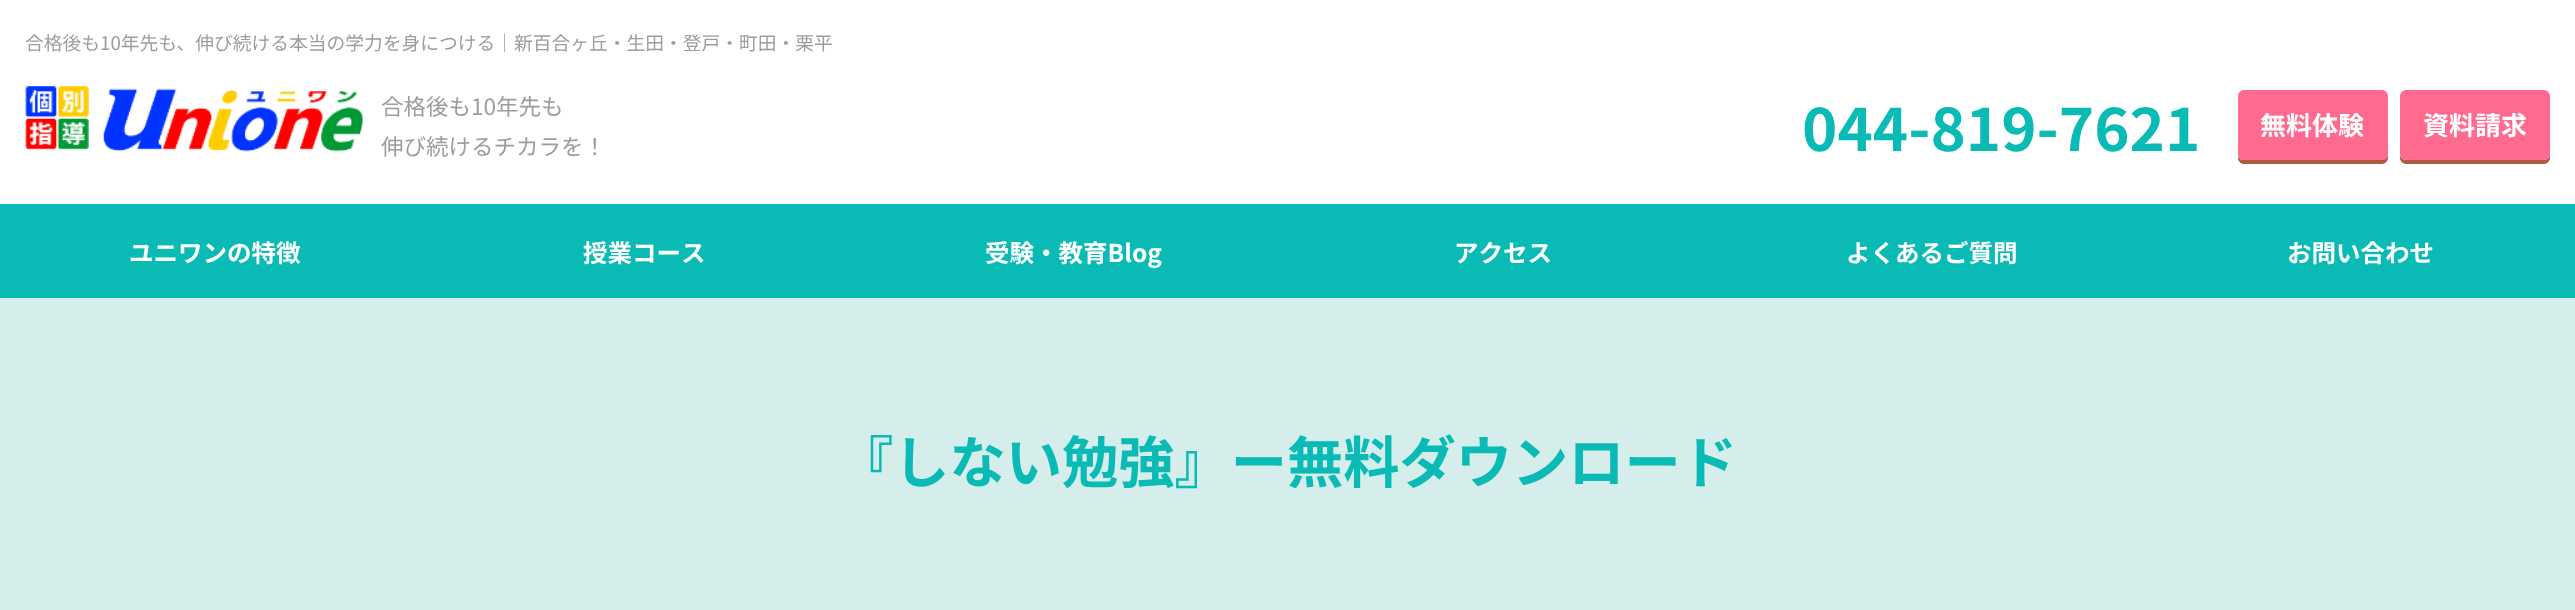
(async () => {
const canvas = document.querySelector("canvas")
canvas.width = 2575
canvas.height = 610
const c = canvas.getContext("2d")
c.miterLimit = 4
c.fontKerning = "normal"
function T(s,x,y){c.fillText(s,x,y)}
function R(x,y,w,h){c.fillRect(x,y,w,h)}
async function I(src,x,y,w,h){const img=new Image();img.src=src;await img.decode();c.drawImage(img,x,y,w,h)}
let path
c.fillStyle="#fff"
R(0,0,2575,610)
c.font="18.75px Noto Sans JP"
c.fillStyle="#9d9d9d"
T("合格後も10年先も、伸び続ける本当の学力を身につける｜新百合ヶ丘・生田・登戸・町田・栗平",25,50)
await I("1.png",25,86,338,66)
c.font="22.5px Noto Sans JP"
T("合格後も10年先も",381,115)
T("伸び続けるチカラを！",381,155)
c.font="bold 60px Noto Sans JP"
c.fillStyle="#0abab5"
T("044-819-7621",1802,151)
c.fillStyle="#ad5b42"
path = new Path2D("M2238 156v2c0 3 3 6 6 6h138c3 0 6-3 6-6v-58v-2v56c0 3-3 6-7 6h-137c-3 0-5-2-6-4z")
c.fill(path)
c.fillStyle="#ff6a8e"
c.beginPath()
c.roundRect(2238.5,90.5,149,69,5.5)
c.fill()
c.strokeStyle="#ff6a8e"
c.stroke()
c.font="bold 26px Noto Sans JP"
c.fillStyle="#fff"
T("無料体験",2260,135)
c.fillStyle="#ad5b42"
path = new Path2D("M2400 154v4c0 3 3 6 6 6h138c3 0 6-3 6-6v-4c0 3-3 6-6 6h-138c-3 0-6-3-6-6z")
c.fill(path)
c.fillStyle="#ff6a8e"
c.beginPath()
c.roundRect(2400.5,90.5,149,69,5.5)
c.fill()
c.stroke()
c.fillStyle="#fff"
T("資料請求",2423,135)
c.fillStyle="#0abab5"
R(0,204,2575,94)
c.font="bold 24.5px Noto Sans JP"
c.fillStyle="#fff"
T("ユニワンの特徴",129,262)
T("授業コース",583,262)
T("受験・教育Blog",985,262)
T("アクセス",1454,262)
T("よくあるご質問",1846,262)
T("お問い合わせ",2287,262)
c.fillStyle="#d5eeeb"
R(0,298,2575,312)
c.font="bold 56.25px Noto Sans JP"
c.fillStyle="#0abab5"
T("『しない勉強』ー無料ダウンロード",837,483)
})()
